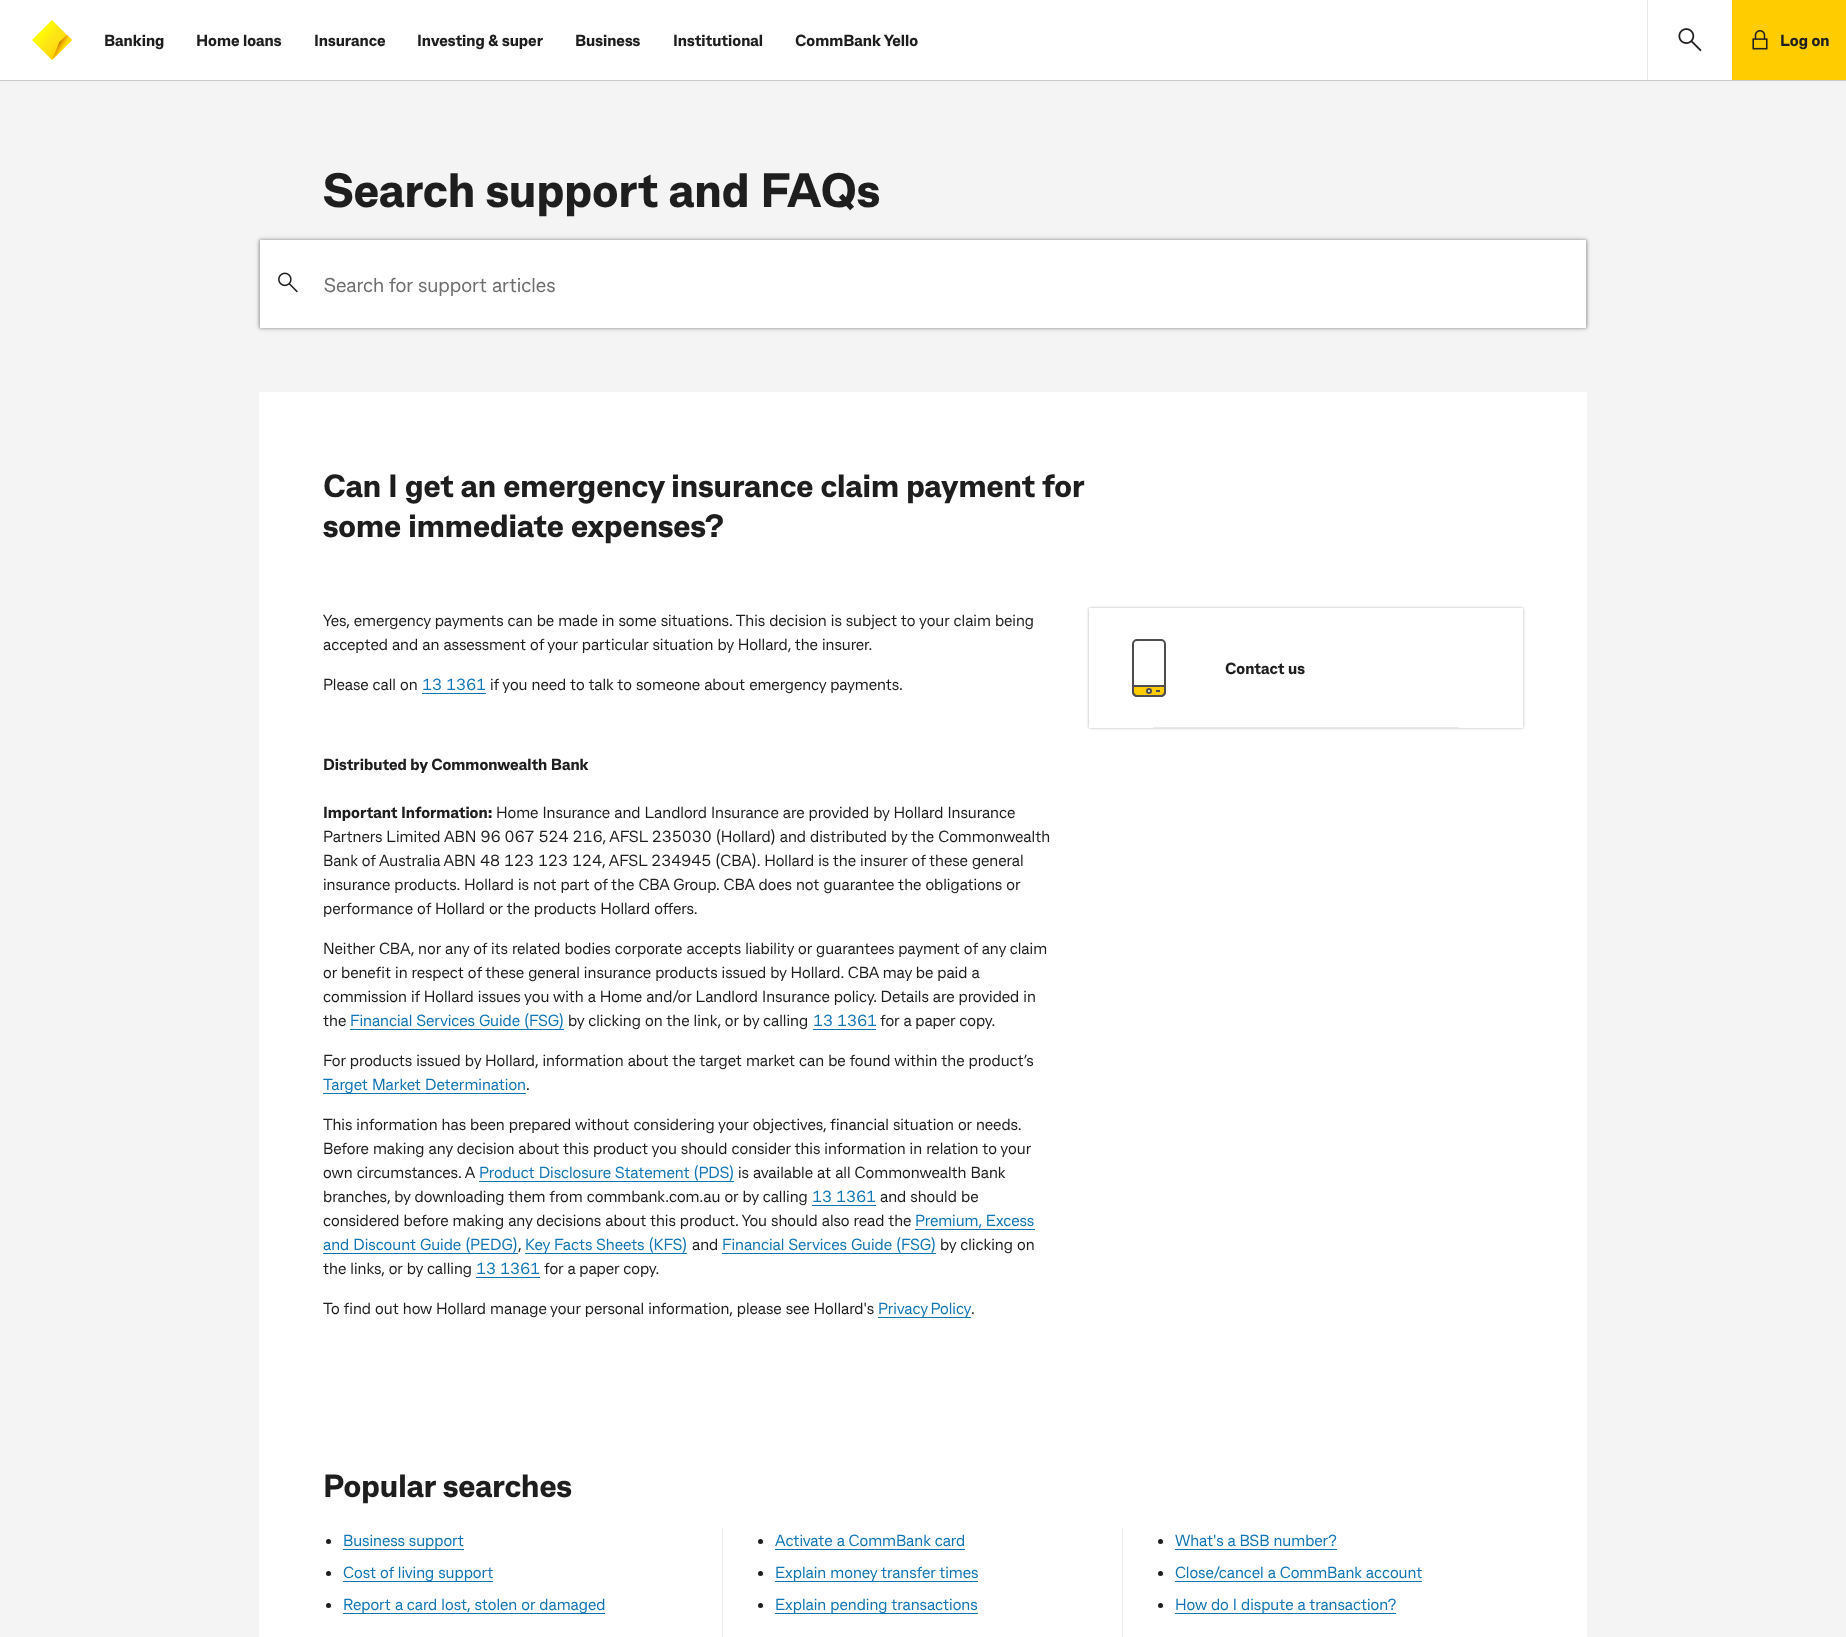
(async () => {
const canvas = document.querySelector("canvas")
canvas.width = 1846
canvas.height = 1637
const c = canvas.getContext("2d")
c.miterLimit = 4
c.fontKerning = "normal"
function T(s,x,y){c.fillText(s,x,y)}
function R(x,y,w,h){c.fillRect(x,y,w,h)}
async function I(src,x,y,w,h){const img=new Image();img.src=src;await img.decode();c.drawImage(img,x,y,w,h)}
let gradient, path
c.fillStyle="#f4f4f4"
R(0,0,1846,1637)
c.fillStyle="#231f2033"
c.filter="blur(0.5px)"
c.beginPath()
c.rect(0,1,1846,80)
c.fill()
c.filter="none"
c.fillStyle="#fff"
R(0,0,1732,80)
gradient = c.createLinearGradient(40,30,64,50)
gradient.addColorStop(0,"#ff0")
gradient.addColorStop(.27,"#fef10c")
gradient.addColorStop(.45,"#fde516")
gradient.addColorStop(.64,"#fde113")
gradient.addColorStop(.82,"#fed508")
gradient.addColorStop(.92,"#fc0")
c.fillStyle = gradient
path = new Path2D("M52 20l20 20l-20 20l-20-20l20-20")
c.fill(path)
gradient = c.createLinearGradient(56,45,64,50)
gradient.addColorStop(.1,"#874400")
gradient.addColorStop(.26,"#d88a00")
gradient.addColorStop(.37,"#e79d00")
gradient.addColorStop(.52,"#f2b400")
gradient.addColorStop(.7,"#fad202")
gradient.addColorStop(.9,"#fedf03")
c.fillStyle = gradient
path = new Path2D("M59.5 42l-7.5 18l20-20l-5-5z")
c.fill(path)
c.font="800 16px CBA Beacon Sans"
c.fillStyle="#1e1e1e"
T("Banking",104,46)
T("Home loans",196,46)
T("Insurance",314,46)
T("Investing & super",417,46)
T("Business",575,46)
T("Institutional",673,46)
T("CommBank Yello",795,46)
c.fillStyle="#e9e9e9"
R(1647,0,1,80)
await I("1.png",1678,28,24,24)
c.fillStyle="#fc0"
R(1732,0,114,80)
await I("2.png",1752,30,16,20)
c.fillStyle="#1e1e1e"
T("Log on",1780,46)
c.font="800 48px CBA Beacon Sans"
T("Search support and FAQs",323,207)
c.fillStyle="#231f204d"
c.filter="blur(1.5px)"
c.beginPath()
c.rect(259,240,1328,88)
c.fill()
c.filter="none"
c.strokeStyle="#d3d2d2"
c.strokeRect(259.5,240.5,1327,87)
c.filter="blur(2.5px)"
c.beginPath()
c.rect(260,240,1326,88)
c.fill()
c.filter="none"
c.fillStyle="#fff"
R(260,240,1326,88)
await I("3.png",278,272,20,21)
c.font="20px CBA Beacon Sans"
c.fillStyle="#706d6e"
T("Search for support articles",324,292)
c.fillStyle="#fff"
R(259,392,1328,1245)
c.font="800 32px CBA Beacon Sans"
c.fillStyle="#1e1e1e"
T("Can I get an emergency insurance claim payment for",323,497)
T("some immediate expenses?",323,537)
c.font="16px CBA Beacon Sans"
T("Yes, emergency payments can be made in some situations. This decision is subject to your claim being",323,626)
T("accepted and an assessment of your particular situation by Hollard, the insurer.",323,650)
T("Please call on",323,690)
c.fillStyle="#1175b5"
T("13 1361",422,690)
R(422,693,64,1)
c.fillStyle="#1e1e1e"
T("if you need to talk to someone about emergency payments.",490,690)
c.font="800 16px CBA Beacon Sans"
T("Distributed by Commonwealth Bank",323,770)
T("Important Information:",323,818)
c.font="16px CBA Beacon Sans"
T("Home Insurance and Landlord Insurance are provided by Hollard Insurance",496,818)
T("Partners Limited ABN 96 067 524 216, AFSL 235030 (Hollard) and distributed by the Commonwealth",323,842)
T("Bank of Australia ABN 48 123 123 124, AFSL 234945 (CBA). Hollard is the insurer of these general",323,866)
T("insurance products. Hollard is not part of the CBA Group. CBA does not guarantee the obligations or",323,890)
T("performance of Hollard or the products Hollard offers.",323,914)
T("Neither CBA, nor any of its related bodies corporate accepts liability or guarantees payment of any claim",323,954)
T("or benefit in respect of these general insurance products issued by Hollard. CBA may be paid a",323,978)
T("commission if Hollard issues you with a Home and/or Landlord Insurance policy. Details are provided in",323,1002)
T("the",323,1026)
c.fillStyle="#1175b5"
T("Financial Services Guide (FSG)",350,1026)
R(350,1029,214,1)
c.fillStyle="#1e1e1e"
T("by clicking on the link, or by calling",568,1026)
c.fillStyle="#1175b5"
T("13 1361",813,1026)
R(813,1029,63,1)
c.fillStyle="#1e1e1e"
T("for a paper copy.",880,1026)
T("For products issued by Hollard, information about the target market can be found within the product’s",323,1066)
c.fillStyle="#1175b5"
R(323,1093,203,1)
T("Target Market Determination",323,1090)
c.fillStyle="#1e1e1e"
T(".",526,1090)
T("This information has been prepared without considering your objectives, financial situation or needs.",323,1130)
T("Before making any decision about this product you should consider this information in relation to your",323,1154)
T("own circumstances. A",323,1178)
c.fillStyle="#1175b5"
T("Product Disclosure Statement (PDS)",479,1178)
R(479,1181,255,1)
c.fillStyle="#1e1e1e"
T("is available at all Commonwealth Bank",738,1178)
T("branches, by downloading them from commbank.com.au or by calling",323,1202)
c.fillStyle="#1175b5"
T("13 1361",812,1202)
R(812,1205,64,1)
c.fillStyle="#1e1e1e"
T("and should be",880,1202)
T("considered before making any decisions about this product. You should also read the",323,1226)
c.fillStyle="#1175b5"
T("Premium, Excess",915,1226)
R(915,1229,120,1)
T("and Discount Guide (PEDG)",323,1250)
R(323,1253,195,1)
c.fillStyle="#1e1e1e"
T(",",518,1250)
c.fillStyle="#1175b5"
R(525,1253,162,1)
T("Key Facts Sheets (KFS)",525,1250)
c.fillStyle="#1e1e1e"
T("and",692,1250)
c.fillStyle="#1175b5"
T("Financial Services Guide (FSG)",722,1250)
R(722,1253,214,1)
c.fillStyle="#1e1e1e"
T("by clicking on",940,1250)
T("the links, or by calling",323,1274)
c.fillStyle="#1175b5"
T("13 1361",476,1274)
R(476,1277,64,1)
c.fillStyle="#1e1e1e"
T("for a paper copy.",544,1274)
T("To find out how Hollard manage your personal information, please see Hollard's",323,1314)
c.fillStyle="#1175b5"
R(878,1317,93,1)
c.wordSpacing="-1px"
T("Privacy Policy",878,1314)
c.wordSpacing="0px"
c.fillStyle="#1e1e1e"
T(".",971,1314)
c.save()
path = new Path2D("M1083 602h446v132h-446zm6 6h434v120h-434z")
c.clip(path,"evenodd")
c.fillStyle="#0000004d"
c.filter="blur(1.5px)"
c.beginPath()
c.rect(1089,608,434,120)
c.fill()
c.filter="none"
c.restore()
c.beginPath()
c.roundRect(1133,640,32,56,4)
c.strokeStyle="#4f4c4d"
c.lineWidth=2
c.stroke()
c.fillStyle="#fc0"
path = new Path2D("M1133 686h32v6c0 2-2 4-4 4h-24c-2 0-4-2-4-4z")
c.fill(path,"evenodd")
c.stroke(path)
c.fillStyle="#fff"
c.beginPath()
c.arc(1149,691,2,0,7)
c.fill()
c.stroke()
path = new Path2D("M1157 691h2")
c.lineCap="square"
c.stroke(path)
c.font="800 16px CBA Beacon Sans"
c.fillStyle="#1e1e1e"
T("Contact us",1225,674)
c.fillStyle="#e9e9e9"
R(1153,727,306,1)
c.font="800 32px CBA Beacon Sans"
c.fillStyle="#1e1e1e"
T("Popular searches",323,1497)
c.fillStyle="#e9e9e9"
R(722,1528,1,109)
c.fillStyle="#1e1e1e"
c.beginPath()
c.arc(328.5,1541.5,2.5,0,7)
c.fill()
c.fillStyle="#1175b5"
R(343,1549,121,1)
c.font="16px CBA Beacon Sans"
T("Business support",343,1546)
c.fillStyle="#1e1e1e"
c.beginPath()
c.arc(328.5,1573.5,2.5,0,7)
c.fill()
c.fillStyle="#1175b5"
R(343,1581,150,1)
T("Cost of living support",343,1578)
c.fillStyle="#1e1e1e"
c.beginPath()
c.arc(328.5,1605.5,2.5,0,7)
c.fill()
c.fillStyle="#1175b5"
R(343,1613,262,1)
T("Report a card lost, stolen or damaged",343,1610)
c.fillStyle="#e9e9e9"
R(1122,1528,1,109)
c.fillStyle="#1e1e1e"
c.beginPath()
c.arc(760.5,1541.5,2.5,0,7)
c.fill()
c.fillStyle="#1175b5"
T("Activate a CommBank card",775,1546)
R(775,1549,190,1)
c.fillStyle="#1e1e1e"
c.beginPath()
c.arc(760.5,1573.5,2.5,0,7)
c.fill()
c.fillStyle="#1175b5"
R(775,1581,203,1)
T("Explain money transfer times",775,1578)
c.fillStyle="#1e1e1e"
c.beginPath()
c.arc(760.5,1605.5,2.5,0,7)
c.fill()
c.fillStyle="#1175b5"
R(775,1613,203,1)
T("Explain pending transactions",775,1610)
c.fillStyle="#1e1e1e"
c.beginPath()
c.arc(1160.5,1541.5,2.5,0,7)
c.fill()
c.fillStyle="#1175b5"
T("What's a BSB number?",1175,1546)
R(1175,1549,162,1)
c.fillStyle="#1e1e1e"
c.beginPath()
c.arc(1160.5,1573.5,2.5,0,7)
c.fill()
c.fillStyle="#1175b5"
T("Close/cancel a CommBank account",1175,1578)
R(1175,1581,247,1)
c.fillStyle="#1e1e1e"
c.beginPath()
c.arc(1160.5,1605.5,2.5,0,7)
c.fill()
c.fillStyle="#1175b5"
R(1175,1613,221,1)
T("How do I dispute a transaction?",1175,1610)
})()
